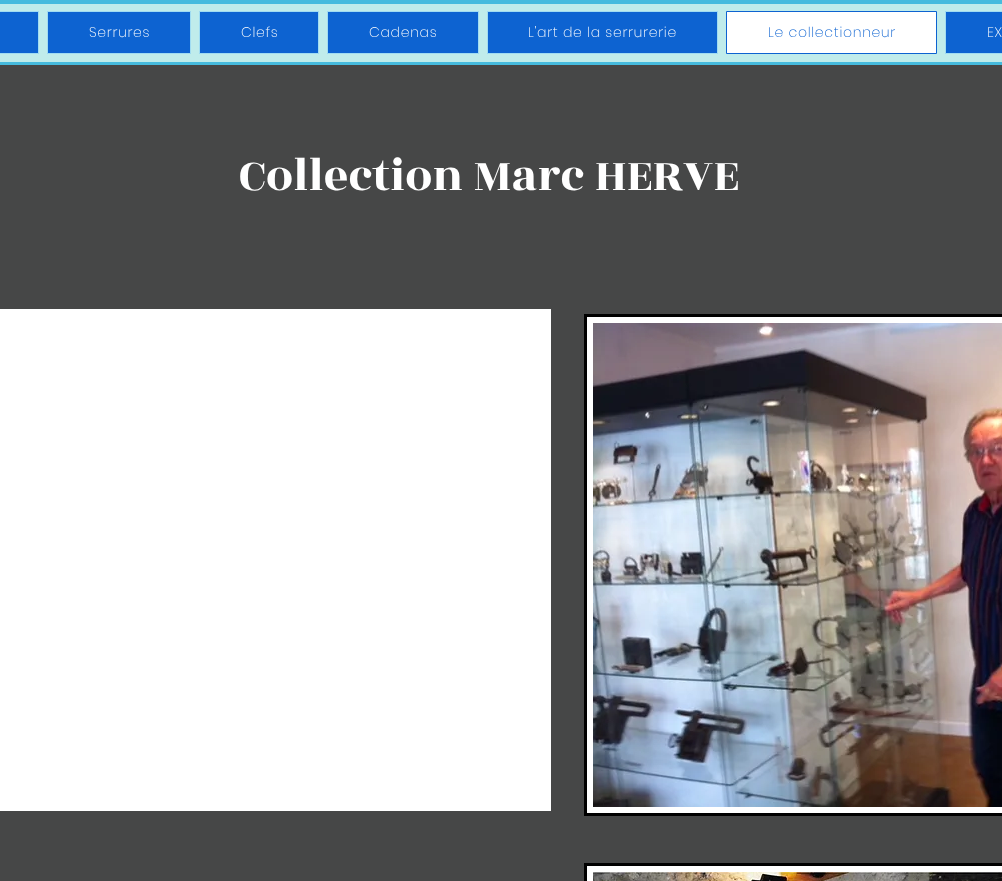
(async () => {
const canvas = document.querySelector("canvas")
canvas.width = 1002
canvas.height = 881
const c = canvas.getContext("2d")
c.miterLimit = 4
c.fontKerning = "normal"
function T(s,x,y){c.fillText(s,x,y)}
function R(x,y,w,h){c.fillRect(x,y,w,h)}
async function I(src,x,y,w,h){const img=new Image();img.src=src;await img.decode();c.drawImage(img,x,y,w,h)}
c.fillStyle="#46bbde"
R(0,0,1002,881)
c.fillStyle="#c0eceb"
R(0,4,1002,58)
c.fillStyle="#0d63d1"
c.beginPath()
c.rect(-.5,11.5,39,42)
c.fill()
c.strokeStyle="#a1dcf2"
c.stroke()
c.beginPath()
c.rect(47.5,11.5,143,42)
c.fill()
c.stroke()
c.letterSpacing="0.7px"
c.font="200 14px Poppins"
c.fillStyle="#fff"
T("Serrures",89,37)
c.fillStyle="#0d63d1"
c.beginPath()
c.rect(199.5,11.5,119,42)
c.fill()
c.stroke()
c.fillStyle="#fff"
T("Clefs",241,37)
c.fillStyle="#0d63d1"
c.beginPath()
c.rect(327.5,11.5,151,42)
c.fill()
c.stroke()
c.fillStyle="#fff"
T("Cadenas",369,37)
c.fillStyle="#0d63d1"
c.beginPath()
c.rect(487.5,11.5,230,42)
c.fill()
c.stroke()
c.fillStyle="#fff"
T("L'art de la serrurerie",528,37)
c.beginPath()
c.rect(726.5,11.5,210,42)
c.fill()
c.strokeStyle="#0d63d1"
c.stroke()
c.fillStyle="#0d63d1"
T("Le collectionneur",768,37)
c.beginPath()
c.rect(945.5,11.5,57,42)
c.fill()
c.strokeStyle="#a1dcf2"
c.stroke()
c.fillStyle="#fff"
T("EX",987,37)
c.fillStyle="#464747"
R(0,65,1002,816)
c.letterSpacing="0px"
c.font="48px Rozha One"
c.fillStyle="#fff"
T("Collection Marc HERVE",239,190)
R(0,309,551,502)
c.beginPath()
c.rect(585.5,315.5,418,499)
c.fill()
c.strokeStyle="#000"
c.lineWidth=3
c.stroke()
await I("1.png",593,323,409,484)
c.beginPath()
c.rect(585.5,864.5,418,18)
c.fill()
c.stroke()
await I("2.png",593,872,409,9)
})()
